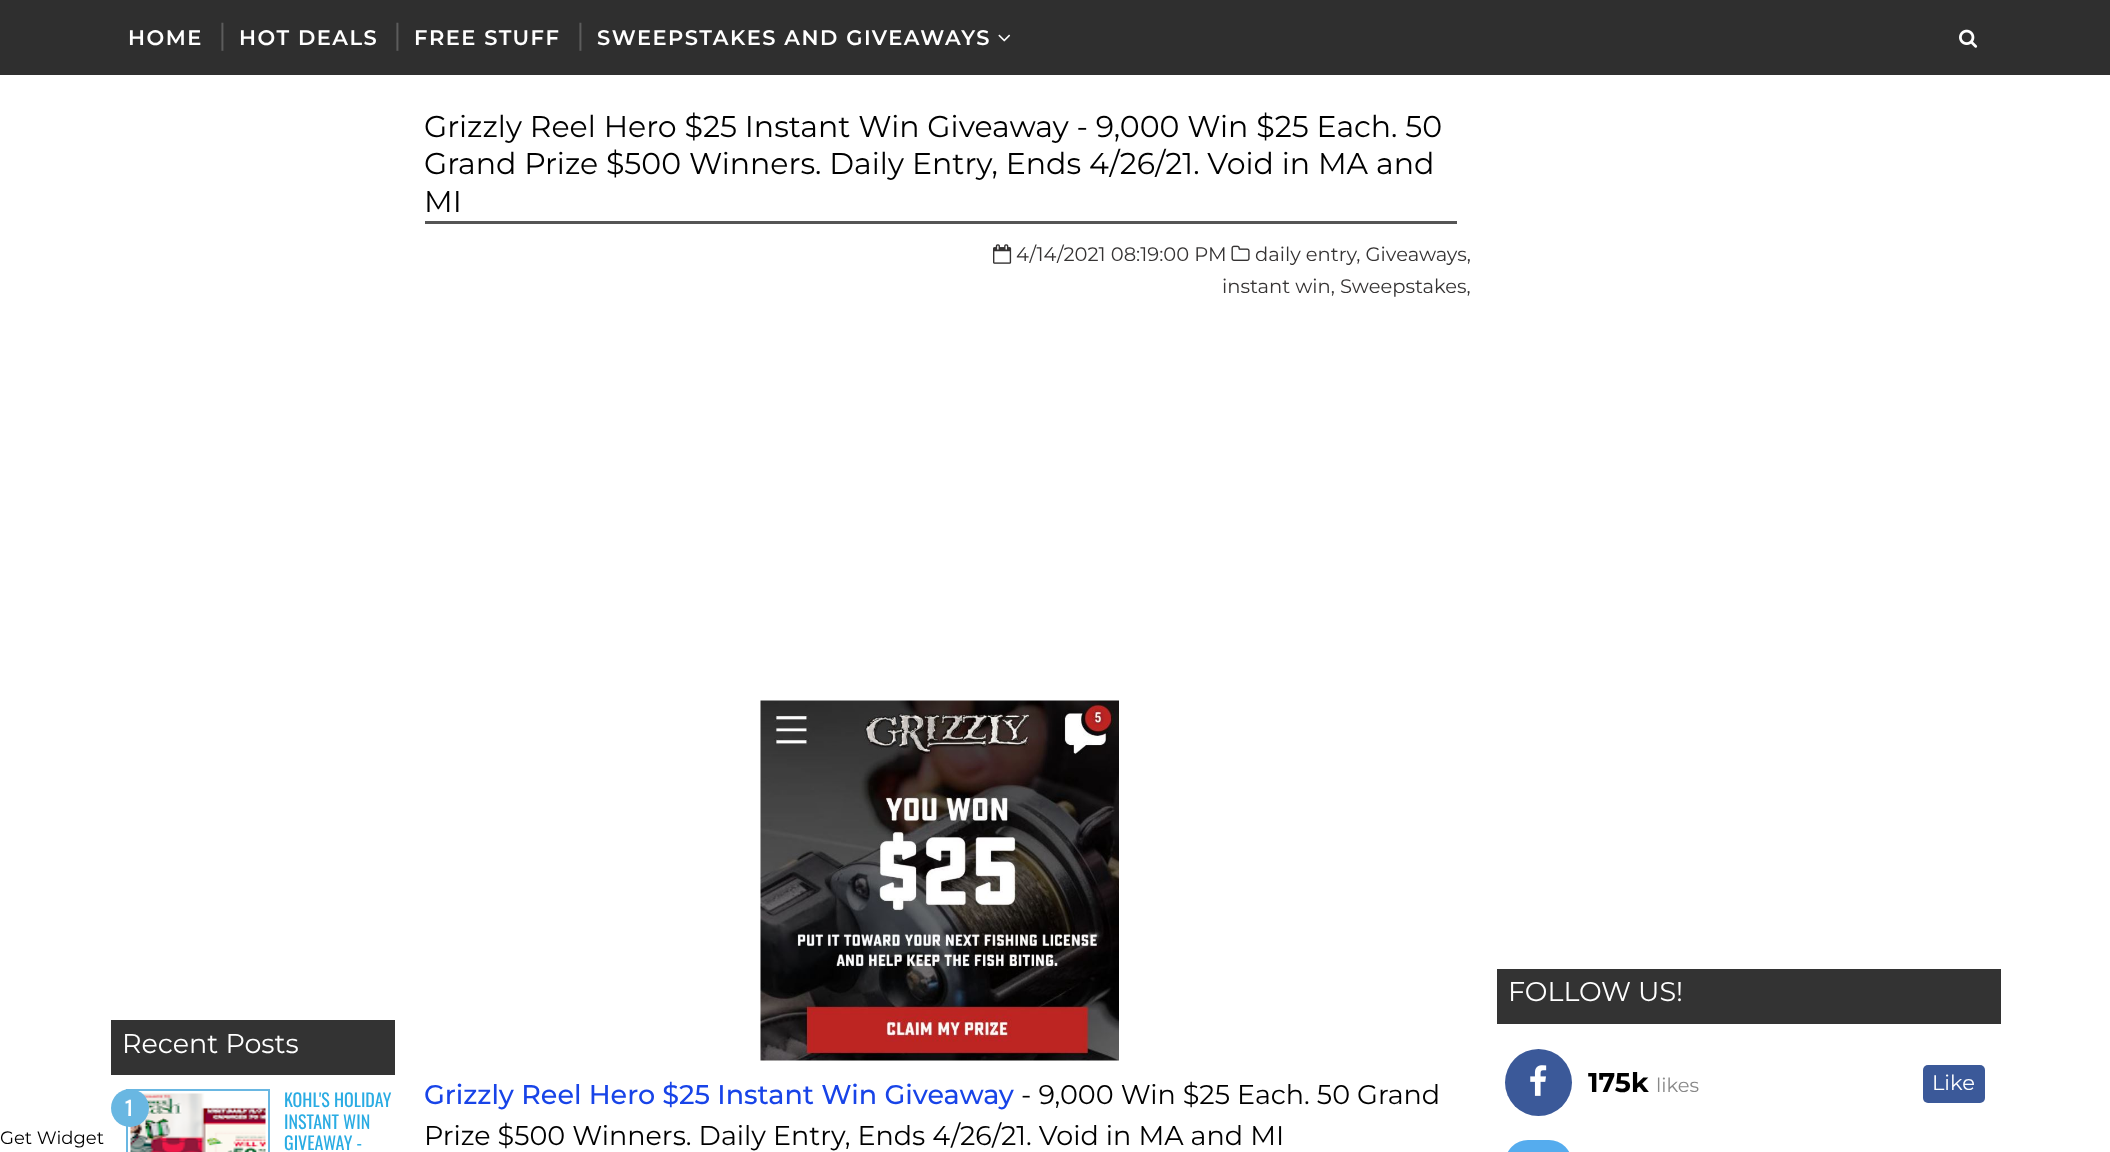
(async () => {
const canvas = document.querySelector("canvas")
canvas.width = 2110
canvas.height = 1152
const c = canvas.getContext("2d")
c.miterLimit = 4
c.fontKerning = "normal"
function T(s,x,y){c.fillText(s,x,y)}
function R(x,y,w,h){c.fillRect(x,y,w,h)}
function Q(x,y,w,h,r){c.beginPath();c.roundRect(x,y,w,h,r);c.fill()}
async function I(src,x,y,w,h){const img=new Image();img.src=src;await img.decode();c.drawImage(img,x,y,w,h)}
c.fillStyle="#fff"
R(0,0,2110,1152)
c.fillStyle="#2f2f2f"
R(0,0,2110,75)
c.letterSpacing="1.5px"
c.font="600 21px Montserrat"
c.fillStyle="#fff"
T("HOME",128,45)
c.letterSpacing="0px"
c.font="30px Montserrat"
c.fillStyle="#5c5c5c"
T("|",218,45)
c.letterSpacing="1.5px"
c.font="600 21px Montserrat"
c.fillStyle="#fff"
T("HOT DEALS",239,45)
c.letterSpacing="0px"
c.font="30px Montserrat"
c.fillStyle="#5c5c5c"
T("|",393,45)
c.letterSpacing="1.5px"
c.font="600 21px Montserrat"
c.fillStyle="#fff"
T("FREE STUFF",414,45)
c.letterSpacing="0px"
c.font="30px Montserrat"
c.fillStyle="#5c5c5c"
T("|",576,45)
c.letterSpacing="1.5px"
c.font="600 21px Montserrat"
c.fillStyle="#fff"
T("SWEEPSTAKES AND GIVEAWAYS",597,45)
await I("1.png",998,34,13,8)
await I("2.png",1959,29,19,19)
c.fillStyle="#555"
R(425,221,1032,3)
c.letterSpacing="0px"
c.font="30px Montserrat"
c.fillStyle="#000"
T("Grizzly Reel Hero $25 Instant Win Giveaway - 9,000 Win $25 Each. 50",424,137)
T("Grand Prize $500 Winners. Daily Entry, Ends 4/26/21. Void in MA and",424,174)
T("MI",424,212)
await I("3.png",993,244,19,20)
c.font="19.5px Montserrat"
c.fillStyle="#353333"
T("4/14/2021 08:19:00 PM",1016,261)
await I("4.png",1231,245,19,16)
T("daily entry, Giveaways,",1255,261)
T("instant win, Sweepstakes,",1222,293)
c.font="18px Montserrat"
c.fillStyle="#000"
T("Get Widget",0,1144)
await I("5.png",760,700,359,361)
c.font="500 27px Montserrat"
c.fillStyle="#1844e8"
T("Grizzly Reel Hero $25 Instant Win Giveaway",424,1104)
c.font="27px Montserrat"
c.fillStyle="#000"
T("- 9,000 Win $25 Each. 50 Grand",1021,1104)
T("Prize $500 Winners. Daily Entry, Ends 4/26/21. Void in MA and MI",424,1145)
c.fillStyle="#333"
R(1497,969,504,55)
c.fillStyle="#fff"
T("FOLLOW US!",1508,1001)
c.fillStyle="#3b5999"
c.beginPath()
c.arc(1538.5,1082.5,33.5,0,7)
c.fill()
await I("6.png",1530,1065,17,31)
c.font="bold 27px Montserrat"
c.fillStyle="#000"
T("175k",1588,1092)
c.font="19.5px Montserrat"
c.fillStyle="#888"
T("likes",1656,1092)
c.fillStyle="#3b5999"
Q(1923,1065,62,38,5)
c.font="21px Montserrat"
c.fillStyle="#fff"
T("Like",1932,1090)
c.fillStyle="#55acee"
Q(1505,1140,67,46,33.5)
c.fillStyle="#333"
R(111,1020,284,55)
c.font="27px Montserrat"
c.fillStyle="#fff"
T("Recent Posts",122,1053)
c.strokeStyle="#69b7e2"
c.lineWidth=2
c.strokeRect(127,1090,142,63)
await I("7.png",130,1093,136,59)
c.font="18px Oswald"
c.fillStyle="#2aace3"
T("KOHL'S HOLIDAY",284,1107)
T("INSTANT WIN",284,1129)
T("GIVEAWAY -",284,1150)
c.fillStyle="#69b7e2"
c.beginPath()
c.arc(130,1108,19,0,7)
c.fill()
c.font="bold 19.5px Oswald"
c.fillStyle="#fff"
T("1",125,1116)
})()
